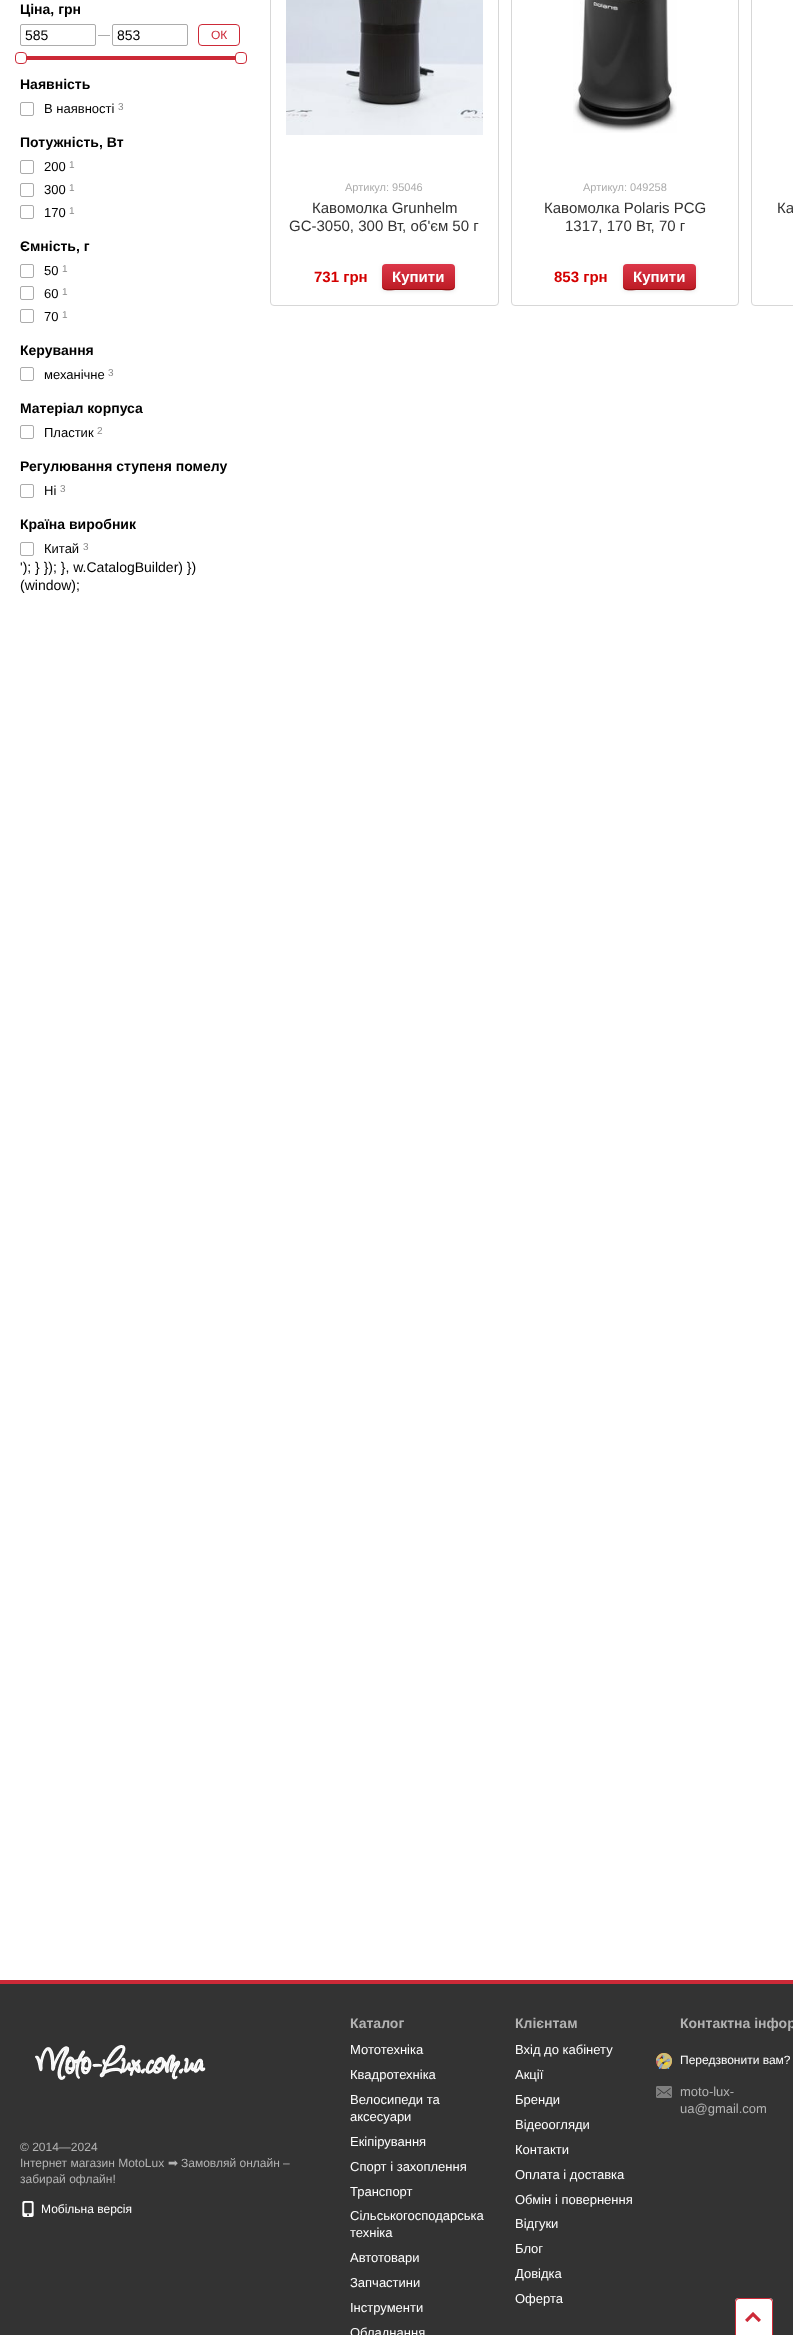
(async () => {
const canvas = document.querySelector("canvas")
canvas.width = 793
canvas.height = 2335
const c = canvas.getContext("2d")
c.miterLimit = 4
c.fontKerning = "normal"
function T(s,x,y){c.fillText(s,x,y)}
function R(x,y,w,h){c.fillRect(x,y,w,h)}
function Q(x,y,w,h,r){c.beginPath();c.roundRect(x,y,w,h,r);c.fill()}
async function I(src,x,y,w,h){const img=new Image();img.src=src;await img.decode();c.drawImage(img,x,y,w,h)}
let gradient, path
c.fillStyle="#fff"
R(0,0,793,2335)
c.font="bold 14px Liberation Sans"
c.fillStyle="#000"
T("Ціна, грн",20,14)
c.beginPath()
c.roundRect(20.5,24.5,75,21,1.5)
c.strokeStyle="#acacac"
c.stroke()
c.font="14px Liberation Sans"
T("585",25,40)
c.fillStyle="#acacac"
R(98,35,12,1)
c.beginPath()
c.roundRect(112.5,24.5,75,21,1.5)
c.stroke()
c.fillStyle="#000"
T("853",117,40)
c.beginPath()
c.roundRect(198.5,24.5,41,21,3.5)
c.strokeStyle="#cd2a38"
c.stroke()
c.font="12px Liberation Sans"
c.fillStyle="#cd2a38"
T("ОК",211,39)
c.fillStyle="#cc2936"
R(20,56,220,4)
c.fillStyle="#fff"
c.beginPath()
c.roundRect(15.5,52.5,11,11,3.5)
c.fill()
c.stroke()
c.beginPath()
c.roundRect(235.5,52.5,11,11,3.5)
c.fill()
c.stroke()
c.font="bold 14px Liberation Sans"
c.fillStyle="#000"
T("Наявність",20,89)
c.beginPath()
c.roundRect(20.5,102.5,13,13,1.5)
c.strokeStyle="#ababab"
c.stroke()
c.font="13px Liberation Sans"
T("В наявності",44,113)
c.font="10px Liberation Sans"
c.fillStyle="#898989"
T("3",118,110)
c.font="bold 14px Liberation Sans"
c.fillStyle="#000"
T("Потужність, Вт",20,147)
c.beginPath()
c.roundRect(20.5,160.5,13,13,1.5)
c.stroke()
c.font="13px Liberation Sans"
T("200",44,171)
c.font="10px Liberation Sans"
c.fillStyle="#898989"
T("1",69,168)
c.beginPath()
c.roundRect(20.5,183.5,13,13,1.5)
c.stroke()
c.font="13px Liberation Sans"
c.fillStyle="#000"
T("300",44,194)
c.font="10px Liberation Sans"
c.fillStyle="#898989"
T("1",69,191)
c.beginPath()
c.roundRect(20.5,205.5,13,13,1.5)
c.stroke()
c.font="13px Liberation Sans"
c.fillStyle="#000"
T("170",44,217)
c.font="10px Liberation Sans"
c.fillStyle="#898989"
T("1",69,214)
c.font="bold 14px Liberation Sans"
c.fillStyle="#000"
T("Ємність, г",20,251)
c.beginPath()
c.roundRect(20.5,264.5,13,13,1.5)
c.stroke()
c.font="13px Liberation Sans"
T("50",44,275)
c.font="10px Liberation Sans"
c.fillStyle="#898989"
T("1",62,272)
c.beginPath()
c.roundRect(20.5,286.5,13,13,1.5)
c.stroke()
c.font="13px Liberation Sans"
c.fillStyle="#000"
T("60",44,298)
c.font="10px Liberation Sans"
c.fillStyle="#898989"
T("1",62,295)
c.beginPath()
c.roundRect(20.5,309.5,13,13,1.5)
c.stroke()
c.font="13px Liberation Sans"
c.fillStyle="#000"
T("70",44,321)
c.font="10px Liberation Sans"
c.fillStyle="#898989"
T("1",62,318)
c.font="bold 14px Liberation Sans"
c.fillStyle="#000"
T("Керування",20,355)
c.beginPath()
c.roundRect(20.5,367.5,13,13,1.5)
c.stroke()
c.font="13px Liberation Sans"
T("механічне",44,379)
c.font="10px Liberation Sans"
c.fillStyle="#898989"
T("3",108,376)
c.font="bold 14px Liberation Sans"
c.fillStyle="#000"
T("Матеріал корпуса",20,413)
c.beginPath()
c.roundRect(20.5,425.5,13,13,1.5)
c.stroke()
c.font="13px Liberation Sans"
T("Пластик",44,437)
c.font="10px Liberation Sans"
c.fillStyle="#898989"
T("2",97,434)
c.font="bold 14px Liberation Sans"
c.fillStyle="#000"
T("Регулювання ступеня помелу",20,471)
c.beginPath()
c.roundRect(20.5,484.5,13,13,1.5)
c.stroke()
c.font="13px Liberation Sans"
T("Ні",44,495)
c.font="10px Liberation Sans"
c.fillStyle="#898989"
T("3",60,492)
c.font="bold 14px Liberation Sans"
c.fillStyle="#000"
T("Країна виробник",20,529)
c.beginPath()
c.roundRect(20.5,542.5,13,13,1.5)
c.stroke()
c.font="13px Liberation Sans"
T("Китай",44,553)
c.font="10px Liberation Sans"
c.fillStyle="#898989"
T("3",83,550)
c.font="14px Liberation Sans"
c.fillStyle="#000"
T("'); } }); }, w.CatalogBuilder) })",20,572)
T("(window);",20,590)
c.beginPath()
c.roundRect(270.5,-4.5,228,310,3.5)
c.strokeStyle="#d7d7d7"
c.stroke()
await I("1.png",286,0,197,135)
c.font="11px Liberation Sans"
c.fillStyle="#acacac"
T("Артикул: 95046",345,191)
c.font="15px Liberation Sans"
c.fillStyle="#333"
T("Кавомолка Grunhelm",312,213)
T("GС-3050, 300 Вт, об'єм 50 г",289,231)
c.font="bold 15px Liberation Sans"
c.fillStyle="#d40000"
T("731 грн",314,282)
c.fillStyle="#0000001a"
c.filter="blur(2px)"
c.beginPath()
c.roundRect(382,265,73,26,4)
c.fill()
c.filter="none"
gradient = c.createLinearGradient(419,264,419,290)
gradient.addColorStop(0,"#dc3749")
gradient.addColorStop(1,"#bc1b24")
c.fillStyle = gradient
Q(382,264,73,26,4)
c.fillStyle="#7d000099"
path = new Path2D("M382 285c0 8 10 5 15 5h43c5 0 15 3 15-5c0 2-2 4-4 4h-65c-2 0-4-2-4-4z")
c.fill(path)
c.fillStyle="#fff"
T("Купити",392,282)
c.beginPath()
c.roundRect(511.5,-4.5,227,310,3.5)
c.stroke()
await I("2.png",573,0,104,133)
c.font="11px Liberation Sans"
c.fillStyle="#acacac"
T("Артикул: 049258",583,191)
c.font="15px Liberation Sans"
c.fillStyle="#333"
T("Кавомолка Polaris PCG",544,213)
T("1317, 170 Вт, 70 г",565,231)
c.font="bold 15px Liberation Sans"
c.fillStyle="#d40000"
T("853 грн",554,282)
c.fillStyle="#0000001a"
c.filter="blur(2px)"
c.beginPath()
c.roundRect(623,265,73,26,4)
c.fill()
c.filter="none"
gradient = c.createLinearGradient(660,264,660,290)
gradient.addColorStop(0,"#dc3749")
gradient.addColorStop(1,"#bc1b24")
c.fillStyle = gradient
Q(623,264,73,26,4)
c.fillStyle="#7d000099"
path = new Path2D("M623 285c0 8 10 5 15 5h43c5 0 15 3 15-5c0 2-2 4-4 4h-65c-2 0-4-2-4-4z")
c.fill(path)
c.fillStyle="#fff"
T("Купити",633,282)
c.beginPath()
c.roundRect(751.5,-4.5,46,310,3.5)
c.stroke()
c.font="15px Liberation Sans"
c.fillStyle="#333"
T("Ка",777,213)
R(0,1984,793,351)
c.fillStyle="#cd2a38"
R(0,1980,793,4)
await I("3.png",35,2045,171,35)
c.font="12px Liberation Sans"
c.fillStyle="#b3b3b3"
T("© 2014—2024",20,2151)
T("Інтернет магазин MotoLux",20,2167)
c.font="12px DejaVu Sans"
T("➡",168,2167)
c.font="12px Liberation Sans"
T("Замовляй онлайн –",181,2167)
T("забирай офлайн!",20,2183)
await I("4.png",22,2201,12,16)
c.fillStyle="#fff"
T("Мобільна версія",41,2213)
c.font="bold 14px Liberation Sans"
c.fillStyle="#b3b3b3"
T("Каталог",350,2028)
c.font="13px Liberation Sans"
c.fillStyle="#fff"
T("Мототехніка",350,2054)
T("Квадротехніка",350,2079)
T("Велосипеди та",350,2104)
T("аксесуари",350,2121)
T("Eкіпірування",350,2146)
T("Спорт і захоплення",350,2171)
T("Транспорт",350,2196)
T("Сільськогосподарська",350,2220)
T("техніка",350,2237)
T("Автотовари",350,2262)
T("Запчастини",350,2287)
T("Інструменти",350,2312)
T("Обладнання",350,2337)
c.font="bold 14px Liberation Sans"
c.fillStyle="#b3b3b3"
T("Клієнтам",515,2028)
c.font="13px Liberation Sans"
c.fillStyle="#fff"
T("Вхід до кабінету",515,2054)
T("Акції",515,2079)
T("Бренди",515,2104)
T("Відеоогляди",515,2129)
T("Контакти",515,2154)
T("Оплата і доставка",515,2179)
T("Обмін і повернення",515,2204)
T("Відгуки",515,2228)
T("Блог",515,2253)
T("Довідка",515,2278)
T("Оферта",515,2303)
c.font="bold 14px Liberation Sans"
c.fillStyle="#b3b3b3"
T("Контактна інфор",680,2028)
await I("5.png",656,2053,16,16)
await I("6.png",656,2053,16,16)
await I("7.png",656,2053,16,16)
await I("8.png",656,2053,16,16)
c.font="12px Liberation Sans"
c.fillStyle="#fff"
T("Передзвонити вам?",680,2064)
await I("9.png",656,2086,16,12)
c.font="13px Liberation Sans"
c.fillStyle="#b3b3b3"
T("moto-lux-",680,2096)
T("ua@gmail.com",680,2113)
c.fillStyle="#fff"
c.beginPath()
c.roundRect(735,2298,38,37,[4,4,0,0])
c.fill()
c.fillStyle="#cd2a38"
path = new Path2D("M739 2298h30c2 0 4 2 4 4v33h-38v-33c0-2 2-4 4-4zm0 1h30c1.5 0 3 1.5 3 3v33h-36v-33c0-1.5 1.5-3 3-3z")
c.fill(path,"evenodd")
await I("10.png",745,2312,16,10)
})()
